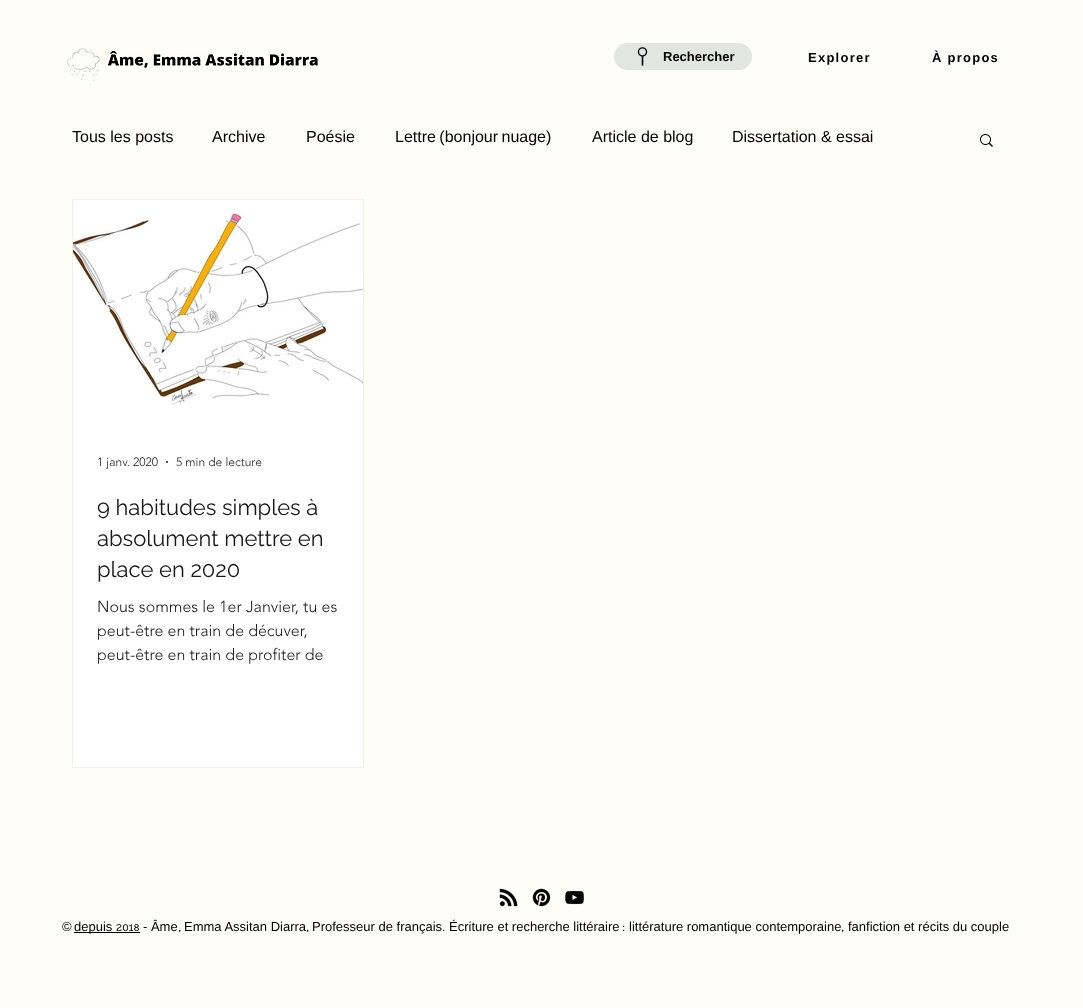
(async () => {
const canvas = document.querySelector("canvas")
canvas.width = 1083
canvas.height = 1008
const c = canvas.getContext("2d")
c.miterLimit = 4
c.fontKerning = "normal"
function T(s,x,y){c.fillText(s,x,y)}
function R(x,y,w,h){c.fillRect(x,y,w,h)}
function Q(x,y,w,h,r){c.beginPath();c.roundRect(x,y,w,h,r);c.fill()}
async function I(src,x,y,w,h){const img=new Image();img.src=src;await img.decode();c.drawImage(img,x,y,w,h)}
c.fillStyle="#fffdf7"
R(0,0,1083,1008)
await I("1.png",67,48,33,33)
await I("2.png",106,50,214,20)
c.fillStyle="#e1e7e0"
Q(614,43,138,27,13.5)
await I("3.png",637,47,11,19)
c.font="bold 13px Liberation Sans"
c.fillStyle="#000"
T("Rechercher",663,61)
c.letterSpacing="1.25px"
T("Explorer",808,62)
T("À propos",932,62)
c.letterSpacing="0px"
c.font="16px Liberation Sans"
T("Tous les posts",72,142)
T("Archive",212,142)
T("Poésie",306,142)
c.wordSpacing="-1px"
T("Lettre (bonjour nuage)",395,142)
c.wordSpacing="0px"
T("Article de blog",592,142)
T("Dissertation & essai",732,142)
await I("4.png",980,134,13,13)
c.strokeStyle="#f1efeb"
c.strokeRect(72.5,199.5,291,568)
await I("5.png",73,200,290,217)
c.fillStyle="#fff"
R(73,417,290,350)
c.font="300 12px 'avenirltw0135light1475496'"
c.fillStyle="#181818"
T("1 janv. 2020",97,466)
c.beginPath()
c.arc(167,462,1,0,7)
c.fill()
T("5 min de lecture",176,466)
c.font="22px Raleway"
T("9 habitudes simples à",97,515)
T("absolument mettre en",97,546)
T("place en 2020",97,577)
c.font="300 16px 'avenirltw0135light1475496'"
T("Nous sommes le 1er Janvier, tu es",97,612)
T("peut-être en train de décuver,",97,636)
T("peut-être en train de profiter de",97,660)
await I("6.png",499,888,19,19)
await I("7.png",532,888,19,19)
await I("8.png",565,891,19,14)
c.font="13px Liberation Sans"
c.fillStyle="#000"
T("©",62,931)
R(74,932,66,1)
T("depuis",74,931)
c.font="13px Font"
T("2018",116,931)
c.font="13px Liberation Sans"
T("- Âme",143,931)
c.font="13px Font"
T(",",178,931)
c.font="13px Liberation Sans"
T("Emma Assitan Diarra",184,931)
c.font="13px Font"
T(",",306,931)
c.font="13px Liberation Sans"
T("Professeur de français",312,931)
c.font="13px Font"
T(".",442,931)
c.font="13px Liberation Sans"
T("Écriture et recherche littéraire",449,931)
c.font="13px Font"
T(":",622,931)
c.font="13px Liberation Sans"
T("littérature romantique contemporaine",629,931)
c.font="13px Font"
T(",",841,931)
c.font="13px Liberation Sans"
T("fanfiction et récits du couple",848,931)
})()
